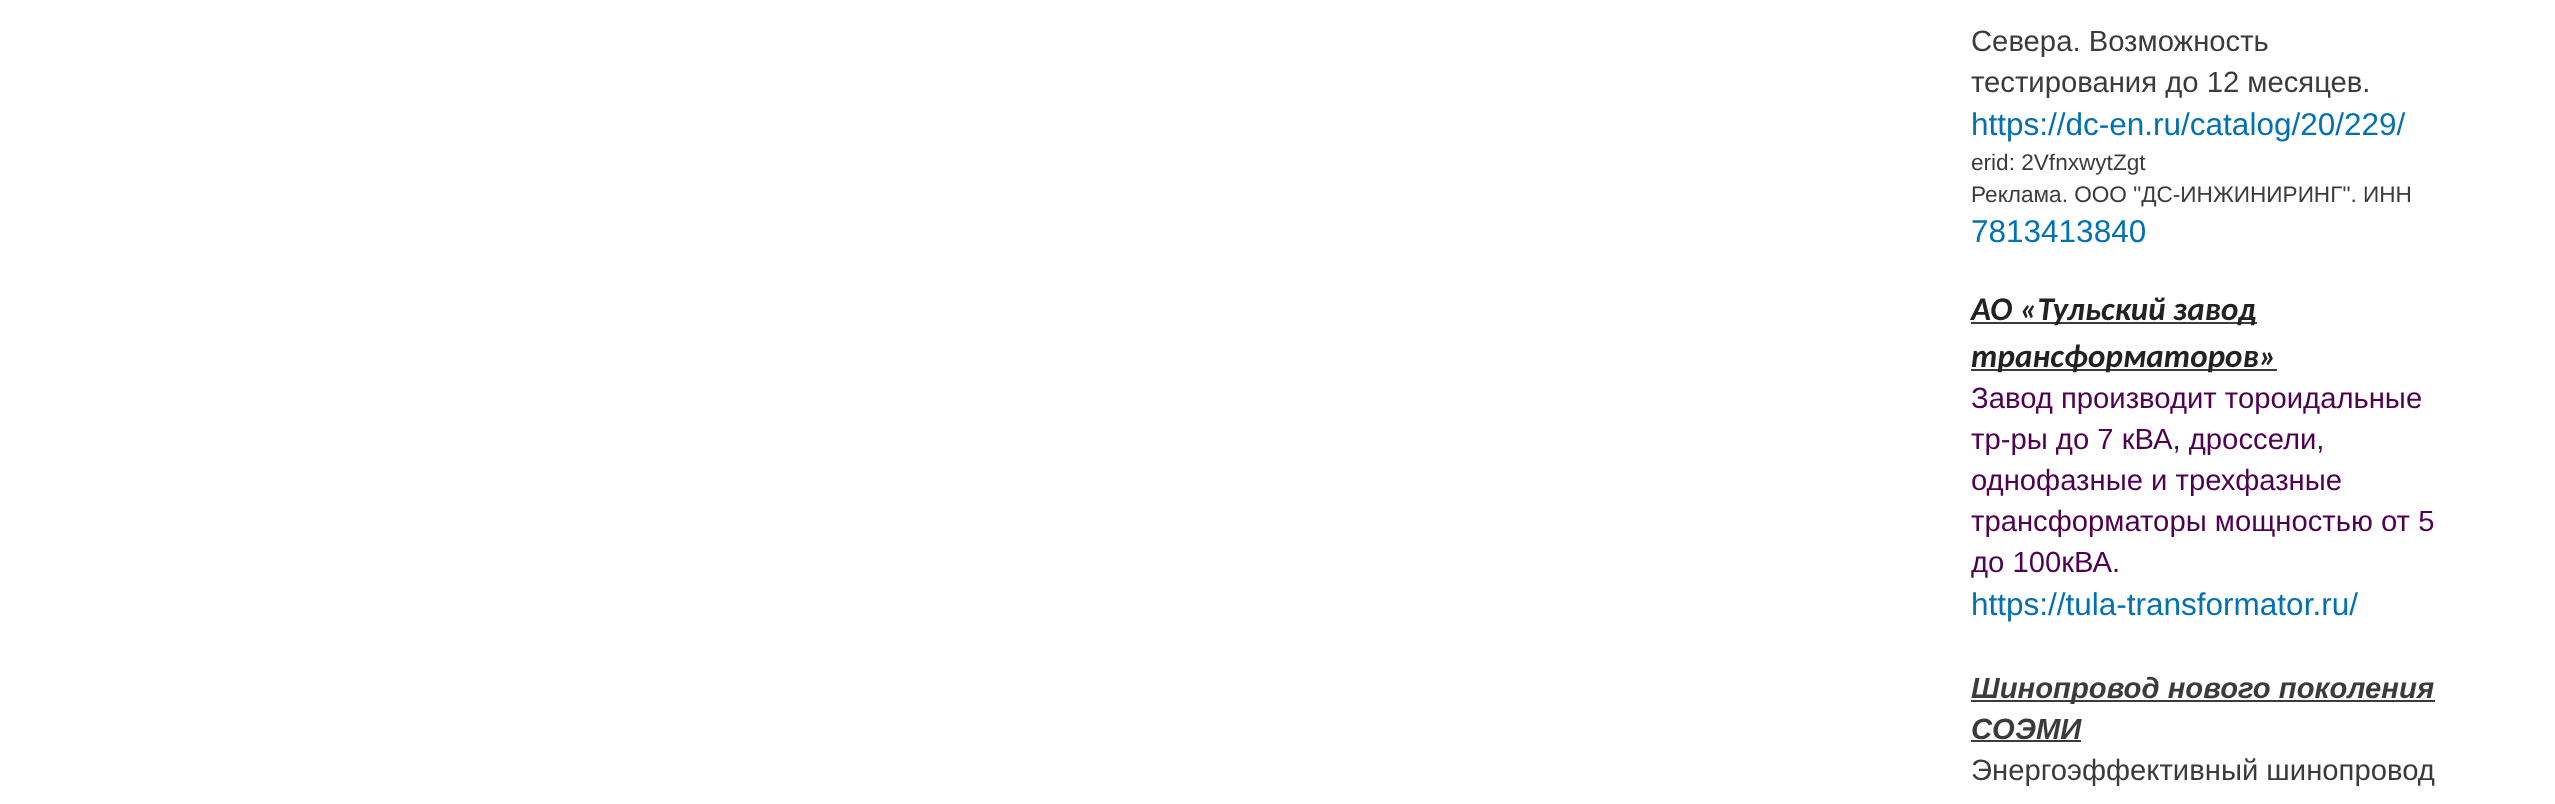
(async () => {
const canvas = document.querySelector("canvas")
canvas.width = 2555
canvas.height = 804
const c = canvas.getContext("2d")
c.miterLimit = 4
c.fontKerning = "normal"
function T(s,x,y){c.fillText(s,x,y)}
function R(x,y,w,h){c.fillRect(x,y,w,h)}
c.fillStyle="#fff"
R(0,0,2555,804)
c.font="29.25px Liberation Sans"
c.fillStyle="#3b3b3b"
T("Севера. Возможность",1971,51)
T("тестирования до 12 месяцев.",1971,92)
c.font="31.5px Liberation Sans"
c.fillStyle="#0071b3"
T("https://dc-en.ru/catalog/20/229/",1971,135)
c.font="22.6px Liberation Sans"
c.fillStyle="#3b3b3b"
T("erid: 2VfnxwytZgt",1971,170)
T("Реклама. ООО \"ДС-ИНЖИНИРИНГ\". ИНН",1971,202)
c.font="31.5px Liberation Sans"
c.fillStyle="#0071b3"
T("7813413840",1971,242)
c.fillStyle="#3b3b3b"
R(1971,322,286,2)
c.font="italic bold 33px Carlito"
c.fillStyle="#222"
T("АО «Тульский завод",1971,320)
c.fillStyle="#3b3b3b"
R(1971,369,306,2)
c.fillStyle="#222"
T("трансформаторов»",1971,367)
c.font="29.25px Liberation Sans"
c.fillStyle="#500050"
T("Завод производит тороидальные",1971,408)
T("тр-ры до 7 кВА, дроссели,",1971,449)
T("однофазные и трехфазные",1971,490)
T("трансформаторы мощностью от 5",1971,531)
T("до 100кВА.",1971,572)
c.font="31.5px Liberation Sans"
c.fillStyle="#0071b3"
T("https://tula-transformator.ru/",1971,615)
c.fillStyle="#3b3b3b"
R(1971,700,464,2)
c.font="italic bold 29.25px Liberation Sans"
T("Шинопровод нового поколения",1971,698)
T("СОЭМИ",1971,739)
R(1971,740,110,2)
c.font="29.25px Liberation Sans"
T("Энергоэффективный шинопровод",1971,780)
})()
